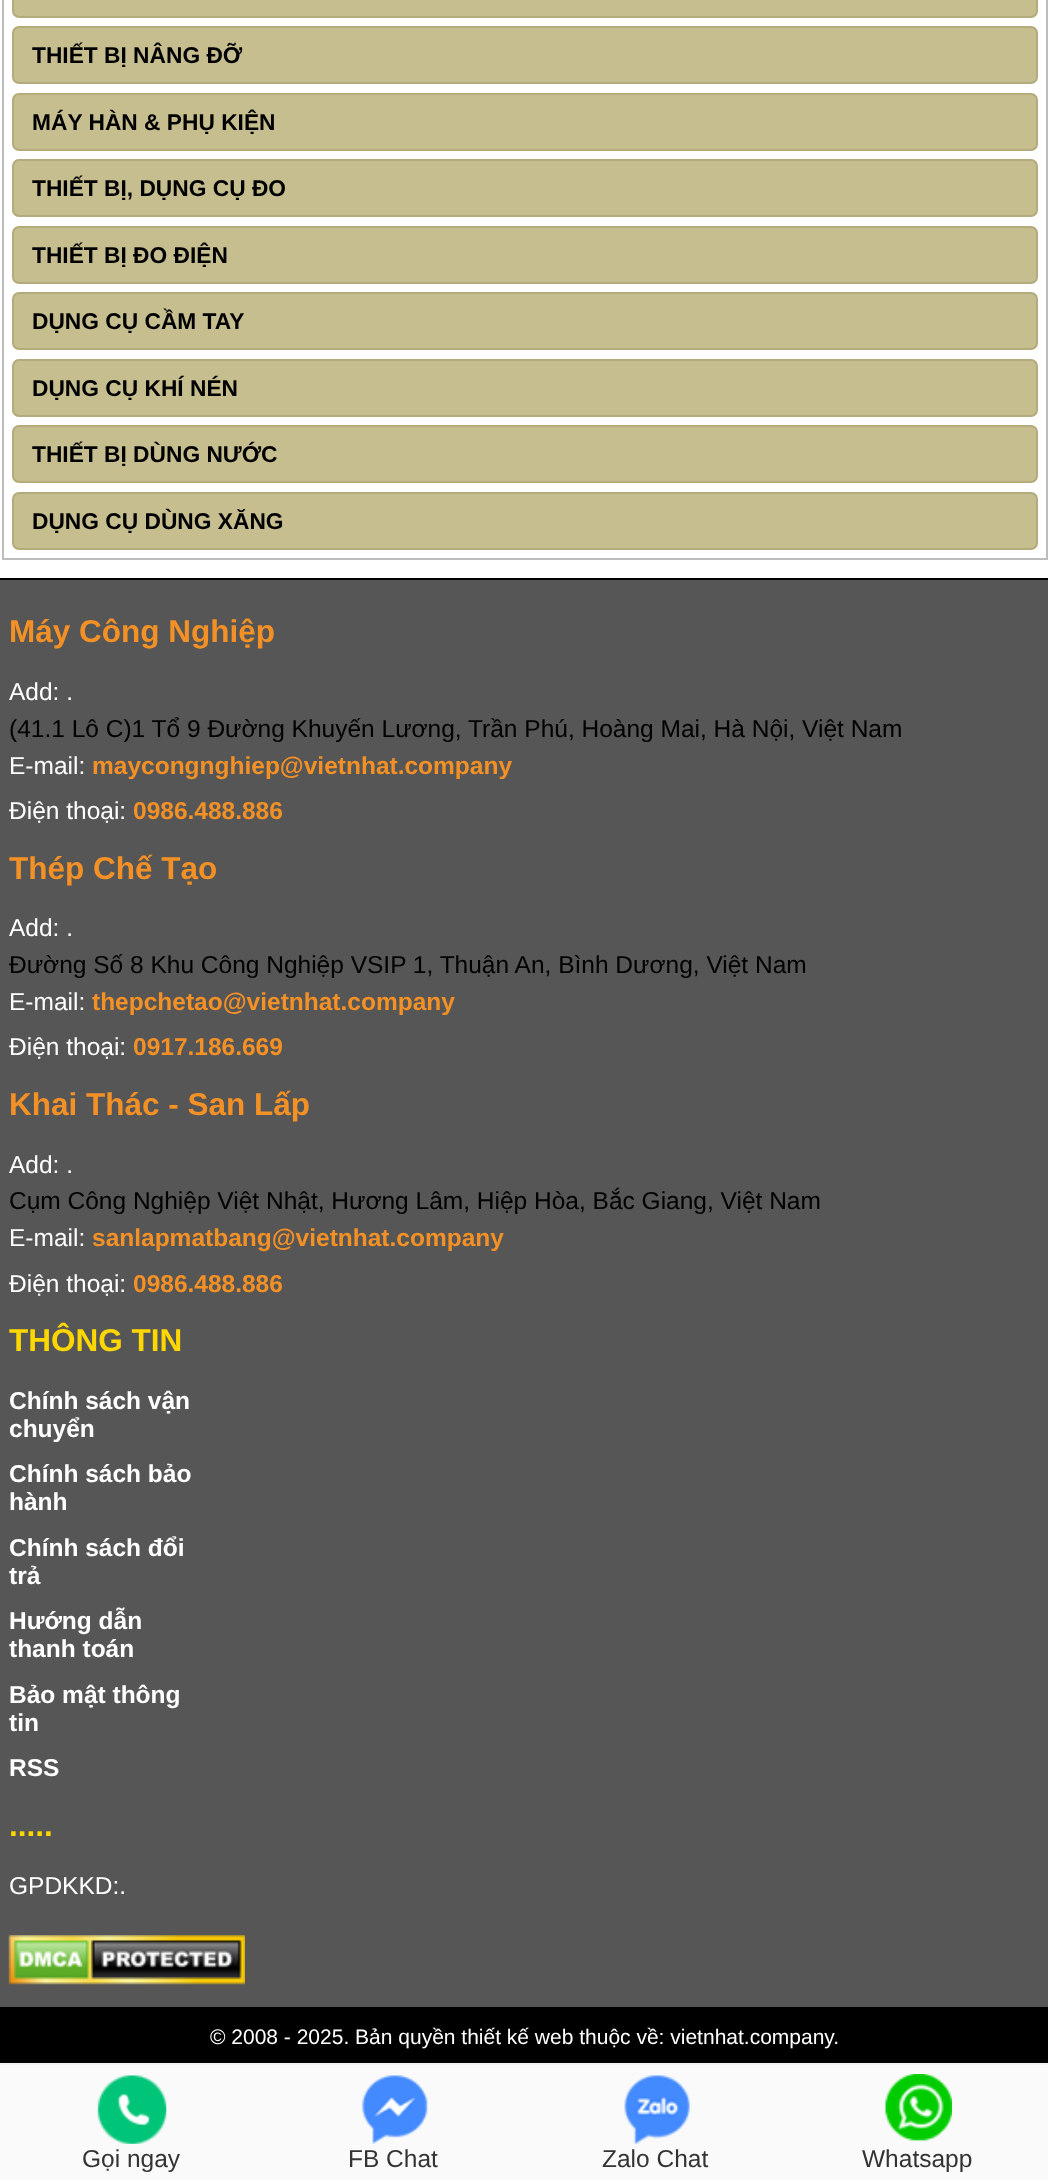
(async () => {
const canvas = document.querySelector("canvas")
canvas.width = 1048
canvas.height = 2180
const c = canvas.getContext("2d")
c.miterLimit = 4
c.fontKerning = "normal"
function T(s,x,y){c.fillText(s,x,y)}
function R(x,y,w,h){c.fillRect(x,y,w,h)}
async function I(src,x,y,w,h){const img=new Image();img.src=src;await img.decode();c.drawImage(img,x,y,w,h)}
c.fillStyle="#fff"
R(0,0,1048,2180)
c.strokeStyle="#bdbdbd"
c.lineWidth=2
c.strokeRect(3,-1,1044,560)
c.fillStyle="#c6be8f"
c.beginPath()
c.roundRect(13,-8,1024,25,6)
c.fill()
c.strokeStyle="#b3ab7b"
c.stroke()
c.beginPath()
c.roundRect(13,27,1024,56,6)
c.fill()
c.stroke()
c.font="bold 22.75px Liberation Sans"
c.fillStyle="#000"
T("THIẾT BỊ NÂNG ĐỠ",32,63)
c.fillStyle="#c6be8f"
c.beginPath()
c.roundRect(13,94,1024,56,6)
c.fill()
c.stroke()
c.fillStyle="#000"
T("MÁY HÀN & PHỤ KIỆN",32,130)
c.fillStyle="#c6be8f"
c.beginPath()
c.roundRect(13,160,1024,56,6)
c.fill()
c.stroke()
c.fillStyle="#000"
T("THIẾT BỊ, DỤNG CỤ ĐO",32,196)
c.fillStyle="#c6be8f"
c.beginPath()
c.roundRect(13,227,1024,56,6)
c.fill()
c.stroke()
c.fillStyle="#000"
T("THIẾT BỊ ĐO ĐIỆN",32,263)
c.fillStyle="#c6be8f"
c.beginPath()
c.roundRect(13,293,1024,56,6)
c.fill()
c.stroke()
c.fillStyle="#000"
T("DỤNG CỤ CẦM TAY",32,329)
c.fillStyle="#c6be8f"
c.beginPath()
c.roundRect(13,360,1024,56,6)
c.fill()
c.stroke()
c.fillStyle="#000"
T("DỤNG CỤ KHÍ NÉN",32,396)
c.fillStyle="#c6be8f"
c.beginPath()
c.roundRect(13,426,1024,56,6)
c.fill()
c.stroke()
c.fillStyle="#000"
T("THIẾT BỊ DÙNG NƯỚC",32,462)
c.fillStyle="#c6be8f"
c.beginPath()
c.roundRect(13,493,1024,56,6)
c.fill()
c.stroke()
c.fillStyle="#000"
T("DỤNG CỤ DÙNG XĂNG",32,529)
c.fillStyle="#565656"
R(0,580,1048,1427)
c.fillStyle="#000"
R(0,578,1048,2)
c.font="bold 31.5px Liberation Sans"
c.fillStyle="#f39126"
T("Máy Công Nghiệp",9,642)
c.font="24.5px Liberation Sans"
c.fillStyle="#fff"
T("Add: .",9,700)
c.fillStyle="#000"
T("(41.1 Lô C)1 Tổ 9 Đường Khuyến Lương, Trần Phú, Hoàng Mai, Hà Nội, Việt Nam",9,737)
c.fillStyle="#fff"
T("E-mail:",9,774)
c.font="bold 24.5px Liberation Sans"
c.fillStyle="#f39126"
T("maycongnghiep@vietnhat.company",92,774)
c.font="24.5px Liberation Sans"
c.fillStyle="#fff"
T("Điện thoại:",9,819)
c.font="bold 24.5px Liberation Sans"
c.fillStyle="#f39126"
T("0986.488.886",133,819)
c.font="bold 31.5px Liberation Sans"
T("Thép Chế Tạo",9,879)
c.font="24.5px Liberation Sans"
c.fillStyle="#fff"
T("Add: .",9,936)
c.fillStyle="#000"
T("Đường Số 8 Khu Công Nghiệp VSIP 1, Thuận An, Bình Dương, Việt Nam",9,973)
c.fillStyle="#fff"
T("E-mail:",9,1010)
c.font="bold 24.5px Liberation Sans"
c.fillStyle="#f39126"
T("thepchetao@vietnhat.company",92,1010)
c.font="24.5px Liberation Sans"
c.fillStyle="#fff"
T("Điện thoại:",9,1055)
c.font="bold 24.5px Liberation Sans"
c.fillStyle="#f39126"
T("0917.186.669",133,1055)
c.font="bold 31.5px Liberation Sans"
T("Khai Thác - San Lấp",9,1115)
c.font="24.5px Liberation Sans"
c.fillStyle="#fff"
T("Add: .",9,1173)
c.fillStyle="#000"
T("Cụm Công Nghiệp Việt Nhật, Hương Lâm, Hiệp Hòa, Bắc Giang, Việt Nam",9,1209)
c.fillStyle="#fff"
T("E-mail:",9,1246)
c.font="bold 24.5px Liberation Sans"
c.fillStyle="#f39126"
T("sanlapmatbang@vietnhat.company",92,1246)
c.font="24.5px Liberation Sans"
c.fillStyle="#fff"
T("Điện thoại:",9,1292)
c.font="bold 24.5px Liberation Sans"
c.fillStyle="#f39126"
T("0986.488.886",133,1292)
c.font="bold 31.5px Liberation Sans"
c.fillStyle="#fed700"
T("THÔNG TIN",9,1351)
c.font="bold 24.5px Liberation Sans"
c.fillStyle="#fff"
T("Chính sách vận",9,1409)
T("chuyển",9,1437)
T("Chính sách bảo",9,1482)
T("hành",9,1510)
T("Chính sách đổi",9,1556)
T("trả",9,1584)
T("Hướng dẫn",9,1629)
T("thanh toán",9,1657)
T("Bảo mật thông",9,1703)
T("tin",9,1731)
T("RSS",9,1776)
c.font="bold 31.5px Liberation Sans"
c.fillStyle="#fed700"
T(".....",9,1836)
c.font="24.5px Liberation Sans"
c.fillStyle="#fff"
T("GPDKKD:.",9,1894)
await I("1.png",8,1935,237,50)
c.fillStyle="#000"
R(0,2007,1048,56)
c.font="21px Liberation Sans"
c.fillStyle="#fff"
T("© 2008 - 2025. Bản quyền thiết kế web thuộc về: vietnhat.company.",210,2044)
c.fillStyle="#333"
c.filter="blur(5px)"
c.beginPath()
c.rect(0,2069,1048,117)
c.fill()
c.filter="none"
c.fillStyle="#fafafa"
R(0,2065,1048,115)
c.fillStyle="#f4f4f4"
R(0,2063,1048,2)
await I("2.png",97,2075,70,69)
c.font="24.5px Liberation Sans"
c.fillStyle="#333"
T("Gọi ngay",82,2167)
await I("3.png",361,2075,67,69)
T("FB Chat",348,2167)
await I("4.png",624,2075,66,69)
T("Zalo Chat",602,2167)
await I("5.png",885,2074,67,67)
T("Whatsapp",862,2167)
})()
